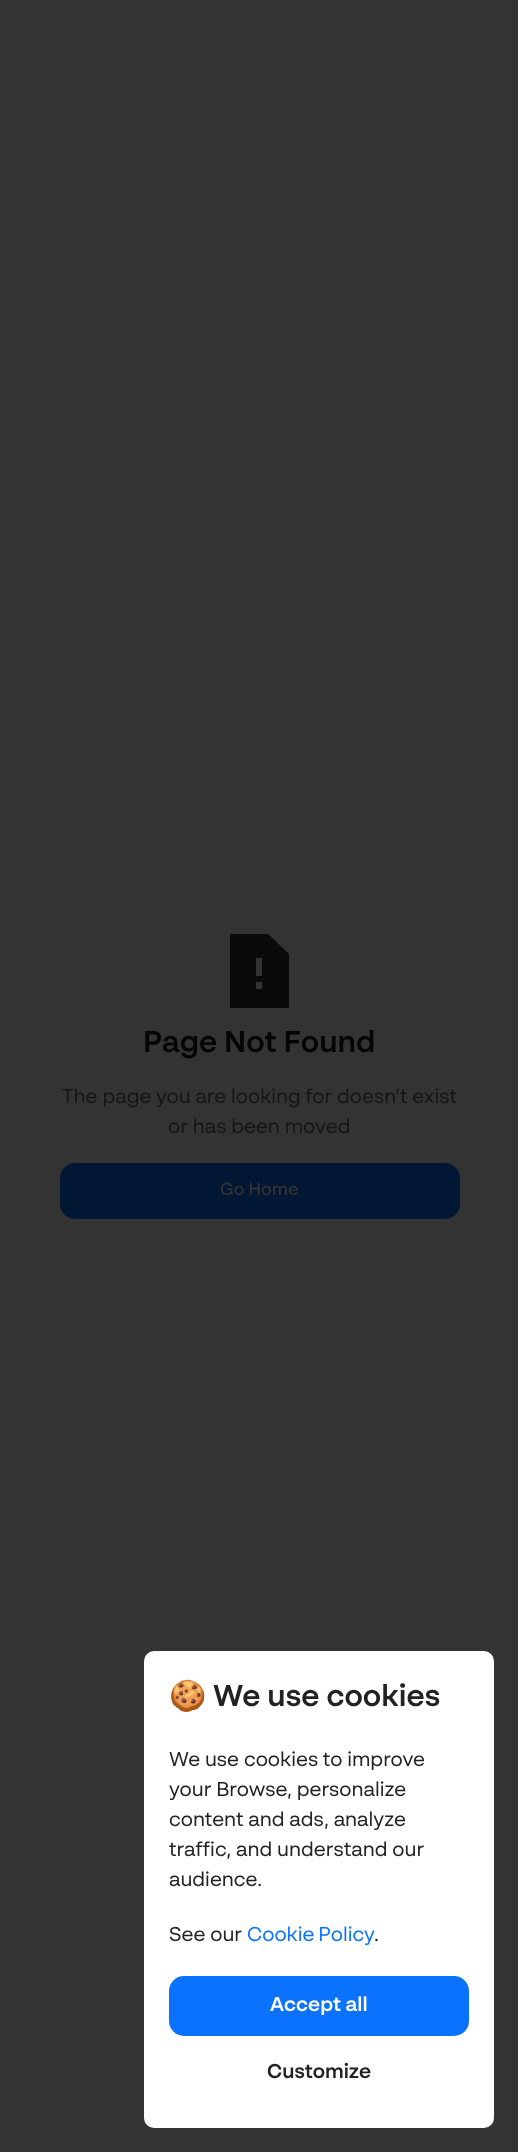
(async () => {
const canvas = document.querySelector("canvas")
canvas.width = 518
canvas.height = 2152
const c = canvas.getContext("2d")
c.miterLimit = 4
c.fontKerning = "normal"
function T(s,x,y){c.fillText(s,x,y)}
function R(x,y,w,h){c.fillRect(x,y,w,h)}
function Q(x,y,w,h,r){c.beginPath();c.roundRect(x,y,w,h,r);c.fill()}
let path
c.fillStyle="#333"
R(0,0,518,2152)
c.fillStyle="#0a0a0a"
path = new Path2D("M230 934h38l21 20v54h-59zm26 24h6v18h-6zm0 24h6v7h-6z")
c.fill(path,"evenodd")
c.font="600 30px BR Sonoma"
c.fillStyle="#050505"
T("Page Not Found",143,1052)
c.font="20px BR Sonoma"
c.fillStyle="#151515"
T("The page you are looking for doesn't exist",62,1103)
T("or has been moved",168,1133)
c.fillStyle="#021733"
Q(60,1163,400,56,15)
c.font="500 17.5px BR Sonoma"
c.fillStyle="#333"
T("Go Home",220,1195)
c.fillStyle="#fff"
Q(144,1651,350,477,10)
c.font="bold 30px Noto Color Emoji"
c.fillStyle="#222"
T("🍪",169,1706)
c.font="600 30px BR Sonoma"
T("We use cookies",213,1706)
c.font="20px BR Sonoma"
T("We use cookies to improve",169,1766)
T("your Browse, personalize",169,1796)
T("content and ads, analyze",169,1826)
T("traffic, and understand our",169,1856)
T("audience.",169,1886)
T("See our",169,1941)
c.wordSpacing="-1px"
c.fillStyle="#0b72fd"
T("Cookie Policy",247,1941)
c.wordSpacing="0px"
c.fillStyle="#222"
T(".",374,1941)
c.fillStyle="#0b72fd"
Q(169,1976,300,60,15)
c.font="600 20px BR Sonoma"
c.fillStyle="#fff"
T("Accept all",270,2011)
c.fillStyle="#222"
T("Customize",267,2078)
})()
